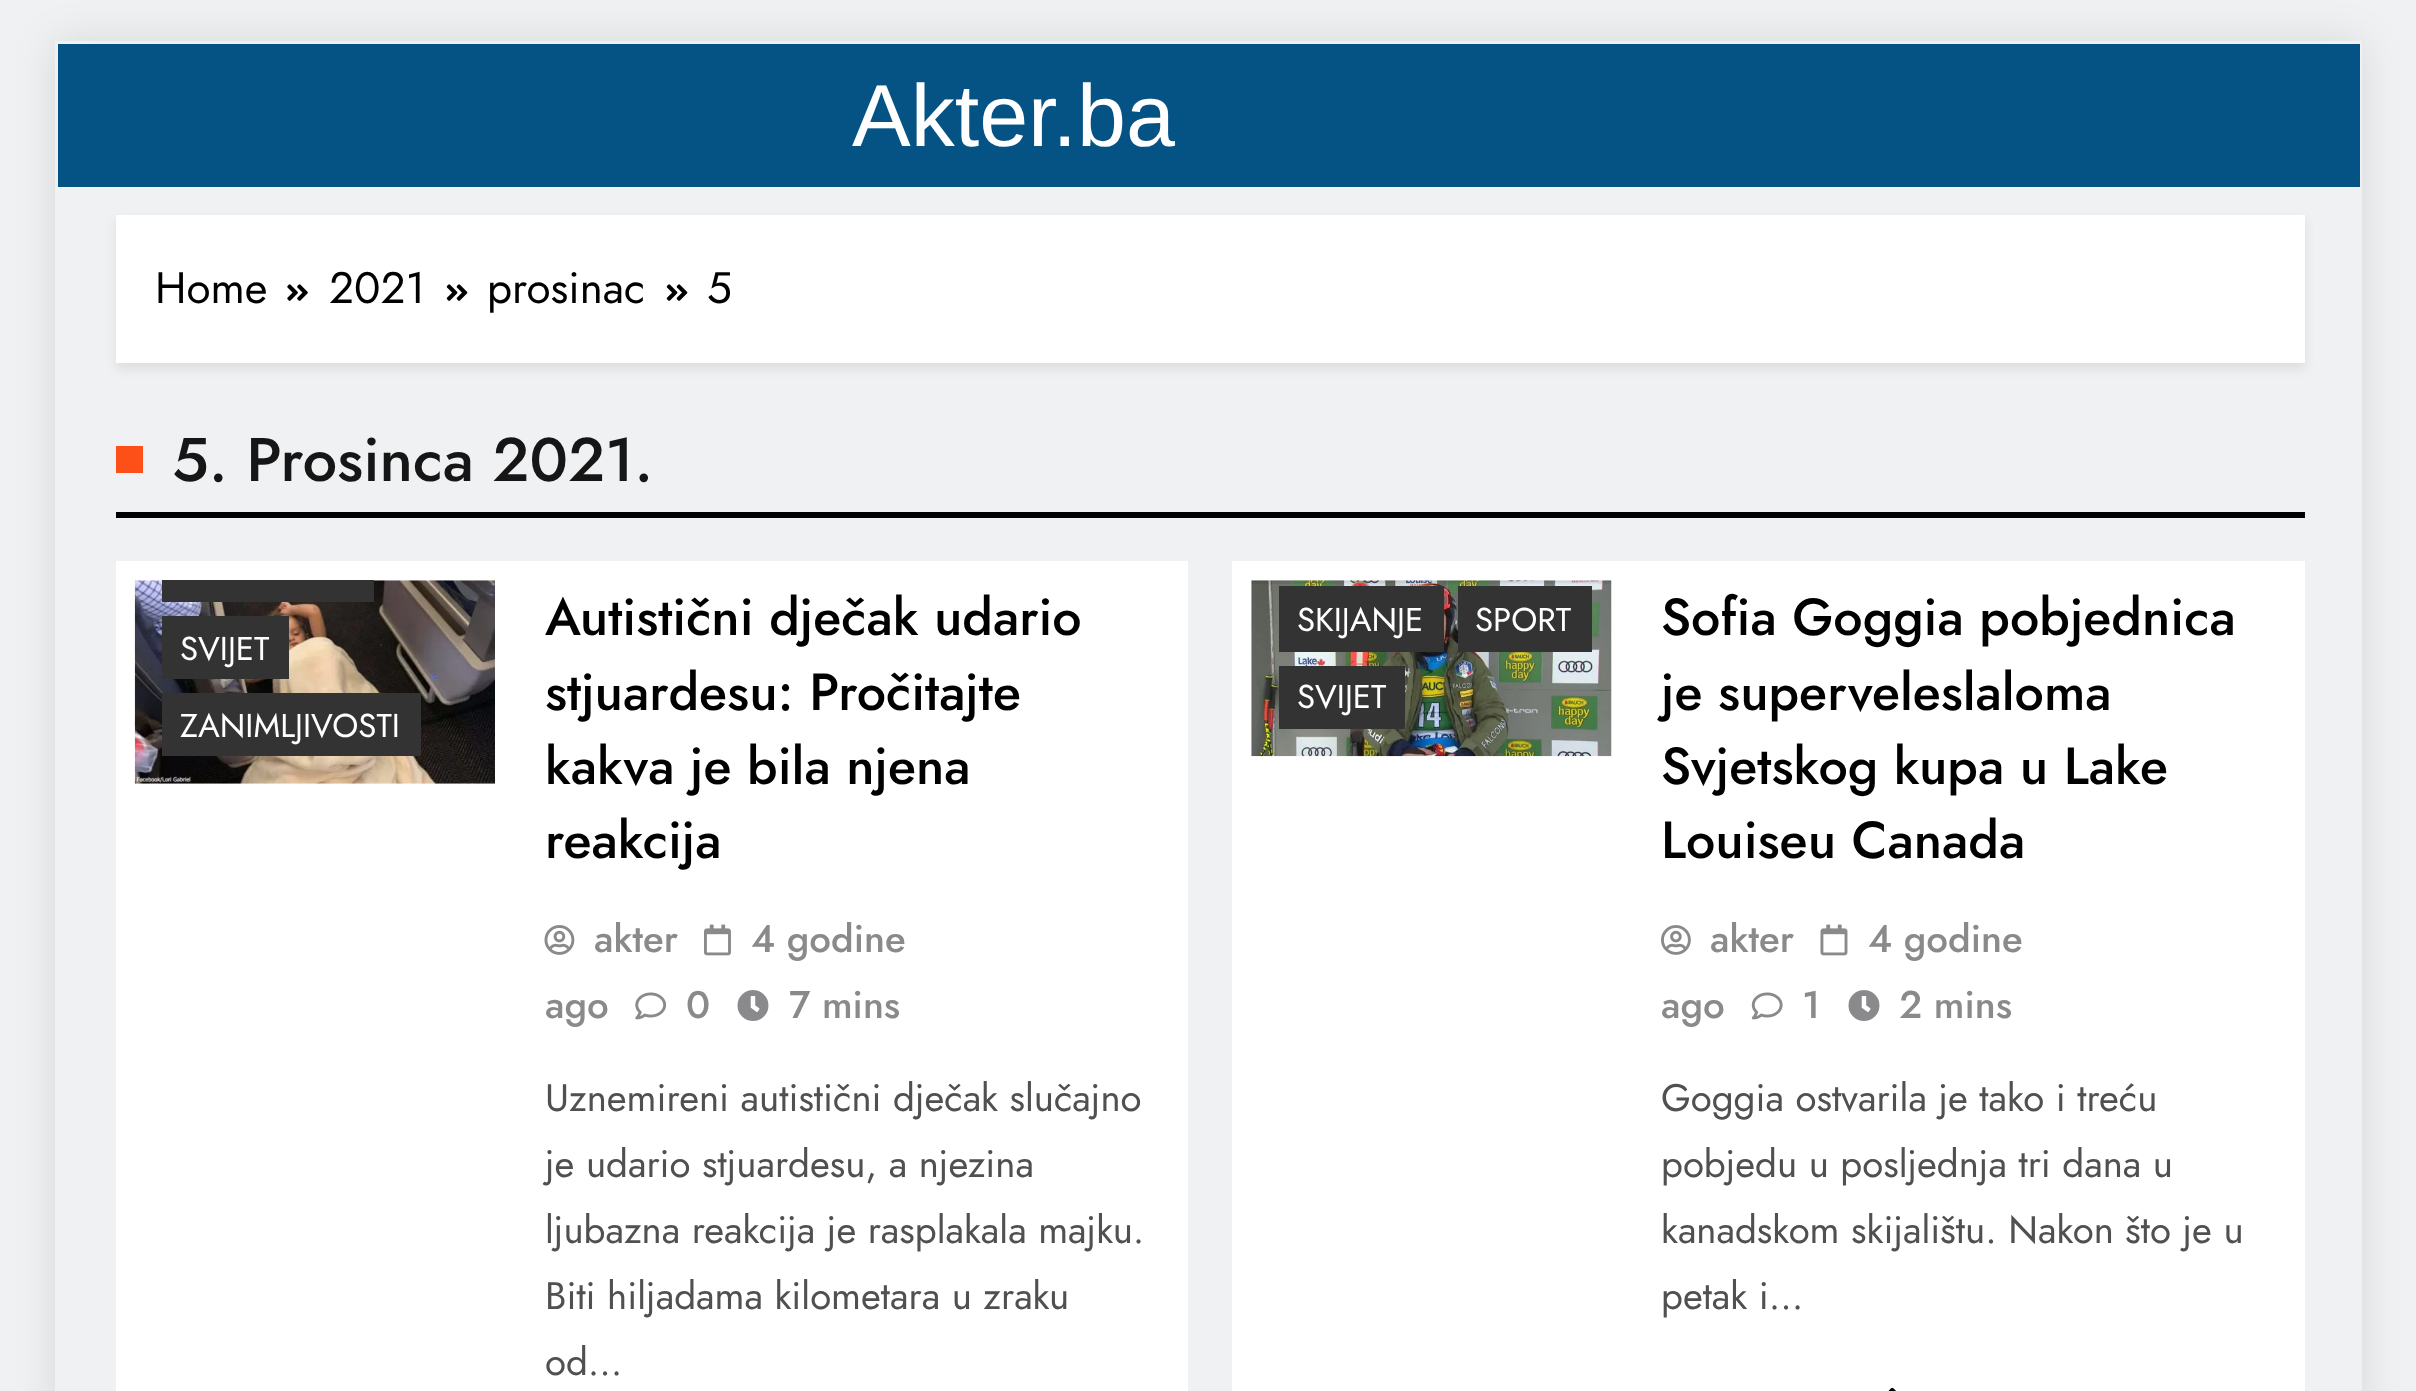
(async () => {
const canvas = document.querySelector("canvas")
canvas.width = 2416
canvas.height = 1391
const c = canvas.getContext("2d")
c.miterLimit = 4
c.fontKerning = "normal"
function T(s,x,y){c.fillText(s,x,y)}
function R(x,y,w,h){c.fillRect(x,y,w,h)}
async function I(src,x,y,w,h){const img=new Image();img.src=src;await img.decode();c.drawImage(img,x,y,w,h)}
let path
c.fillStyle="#f0f1f2"
R(0,0,2416,1391)
c.save()
path = new Path2D("M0 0h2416v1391h-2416zm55 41h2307v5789h-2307z")
c.clip(path,"evenodd")
c.fillStyle="#0000001a"
c.filter="blur(20.5px)"
c.beginPath()
c.rect(55,41,2307,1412)
c.fill()
c.filter="none"
c.restore()
c.fillStyle="#055385"
R(58,44,2302,143)
c.font="88px Liberation Sans"
c.fillStyle="#fff"
T("Akter.ba",852,146)
c.fillStyle="#00000014"
c.filter="blur(5.5px)"
c.beginPath()
c.rect(116,220,2189,149)
c.fill()
c.filter="none"
c.fillStyle="#fff"
R(116,215,2189,148)
c.font="44px Jost"
c.fillStyle="#000"
T("Home",155,303)
await I("1.png",287,284,21,17)
T("2021",329,303)
await I("2.png",446,284,22,17)
T("prosinac",487,303)
await I("2.png",666,284,22,17)
T("5",707,303)
R(116,512,2189,6)
c.fillStyle="#fd4f18"
R(116,446,27,27)
c.font="500 61.5px Jost"
c.fillStyle="#161616"
T("5. Prosinca 2021.",172,481)
c.fillStyle="#fff"
R(116,561,1072,830)
await I("3.png",134,580,361,204)
c.fillStyle="#333"
R(162,580,212,22)
R(162,616,127,63)
c.font="33px Jost"
c.fillStyle="#fff"
T("SVIJET",180,660)
c.fillStyle="#333"
R(162,693,259,63)
c.fillStyle="#fff"
T("ZANIMLJIVOSTI",180,737)
c.font="500 52px Jost"
c.fillStyle="#000"
T("Autistični dječak udario",545,635)
T("stjuardesu: Pročitajte",545,710)
T("kakva je bila njena",545,784)
T("reakcija",545,858)
await I("4.png",544,925,31,30)
c.font="500 38.5px Jost"
c.fillStyle="#8a8a8c"
T("akter",594,952)
await I("5.png",704,924,27,32)
T("4 godine",751,952)
T("ago",545,1018)
await I("6.png",635,992,32,28)
T("0",686,1018)
await I("7.png",737,990,32,31)
T("7 mins",789,1018)
c.font="38.4px Jost"
c.fillStyle="#505050"
T("Uznemireni autistični dječak slučajno",545,1111)
T("je udario stjuardesu, a njezina",545,1177)
T("ljubazna reakcija je rasplakala majku.",545,1243)
T("Biti hiljadama kilometara u zraku",545,1309)
T("od…",545,1375)
c.fillStyle="#fff"
R(1232,561,1073,830)
await I("8.png",1251,580,361,177)
c.fillStyle="#333"
R(1279,586,165,66)
c.font="33px Jost"
c.fillStyle="#fff"
T("SKIJANJE",1297,631)
c.fillStyle="#333"
R(1458,586,134,66)
c.fillStyle="#fff"
T("SPORT",1475,631)
c.fillStyle="#333"
R(1279,666,126,63)
c.fillStyle="#fff"
T("SVIJET",1297,708)
c.font="500 52px Jost"
c.fillStyle="#000"
T("Sofia Goggia pobjednica",1661,635)
T("je superveleslaloma",1661,710)
T("Svjetskog kupa u Lake",1661,784)
T("Louiseu Canada",1661,858)
await I("9.png",1661,925,30,30)
c.font="500 38.5px Jost"
c.fillStyle="#8a8a8c"
T("akter",1710,952)
await I("10.png",1820,924,28,32)
T("4 godine",1868,952)
T("ago",1661,1018)
await I("11.png",1751,992,32,28)
T("1",1802,1018)
await I("7.png",1848,990,32,31)
T("2 mins",1899,1018)
c.font="38.4px Jost"
c.fillStyle="#505050"
T("Goggia ostvarila je tako i treću",1661,1111)
T("pobjedu u posljednja tri dana u",1661,1177)
T("kanadskom skijalištu. Nakon što je u",1661,1243)
T("petak i…",1661,1309)
await I("12.png",1888,1387,8,4)
})()
